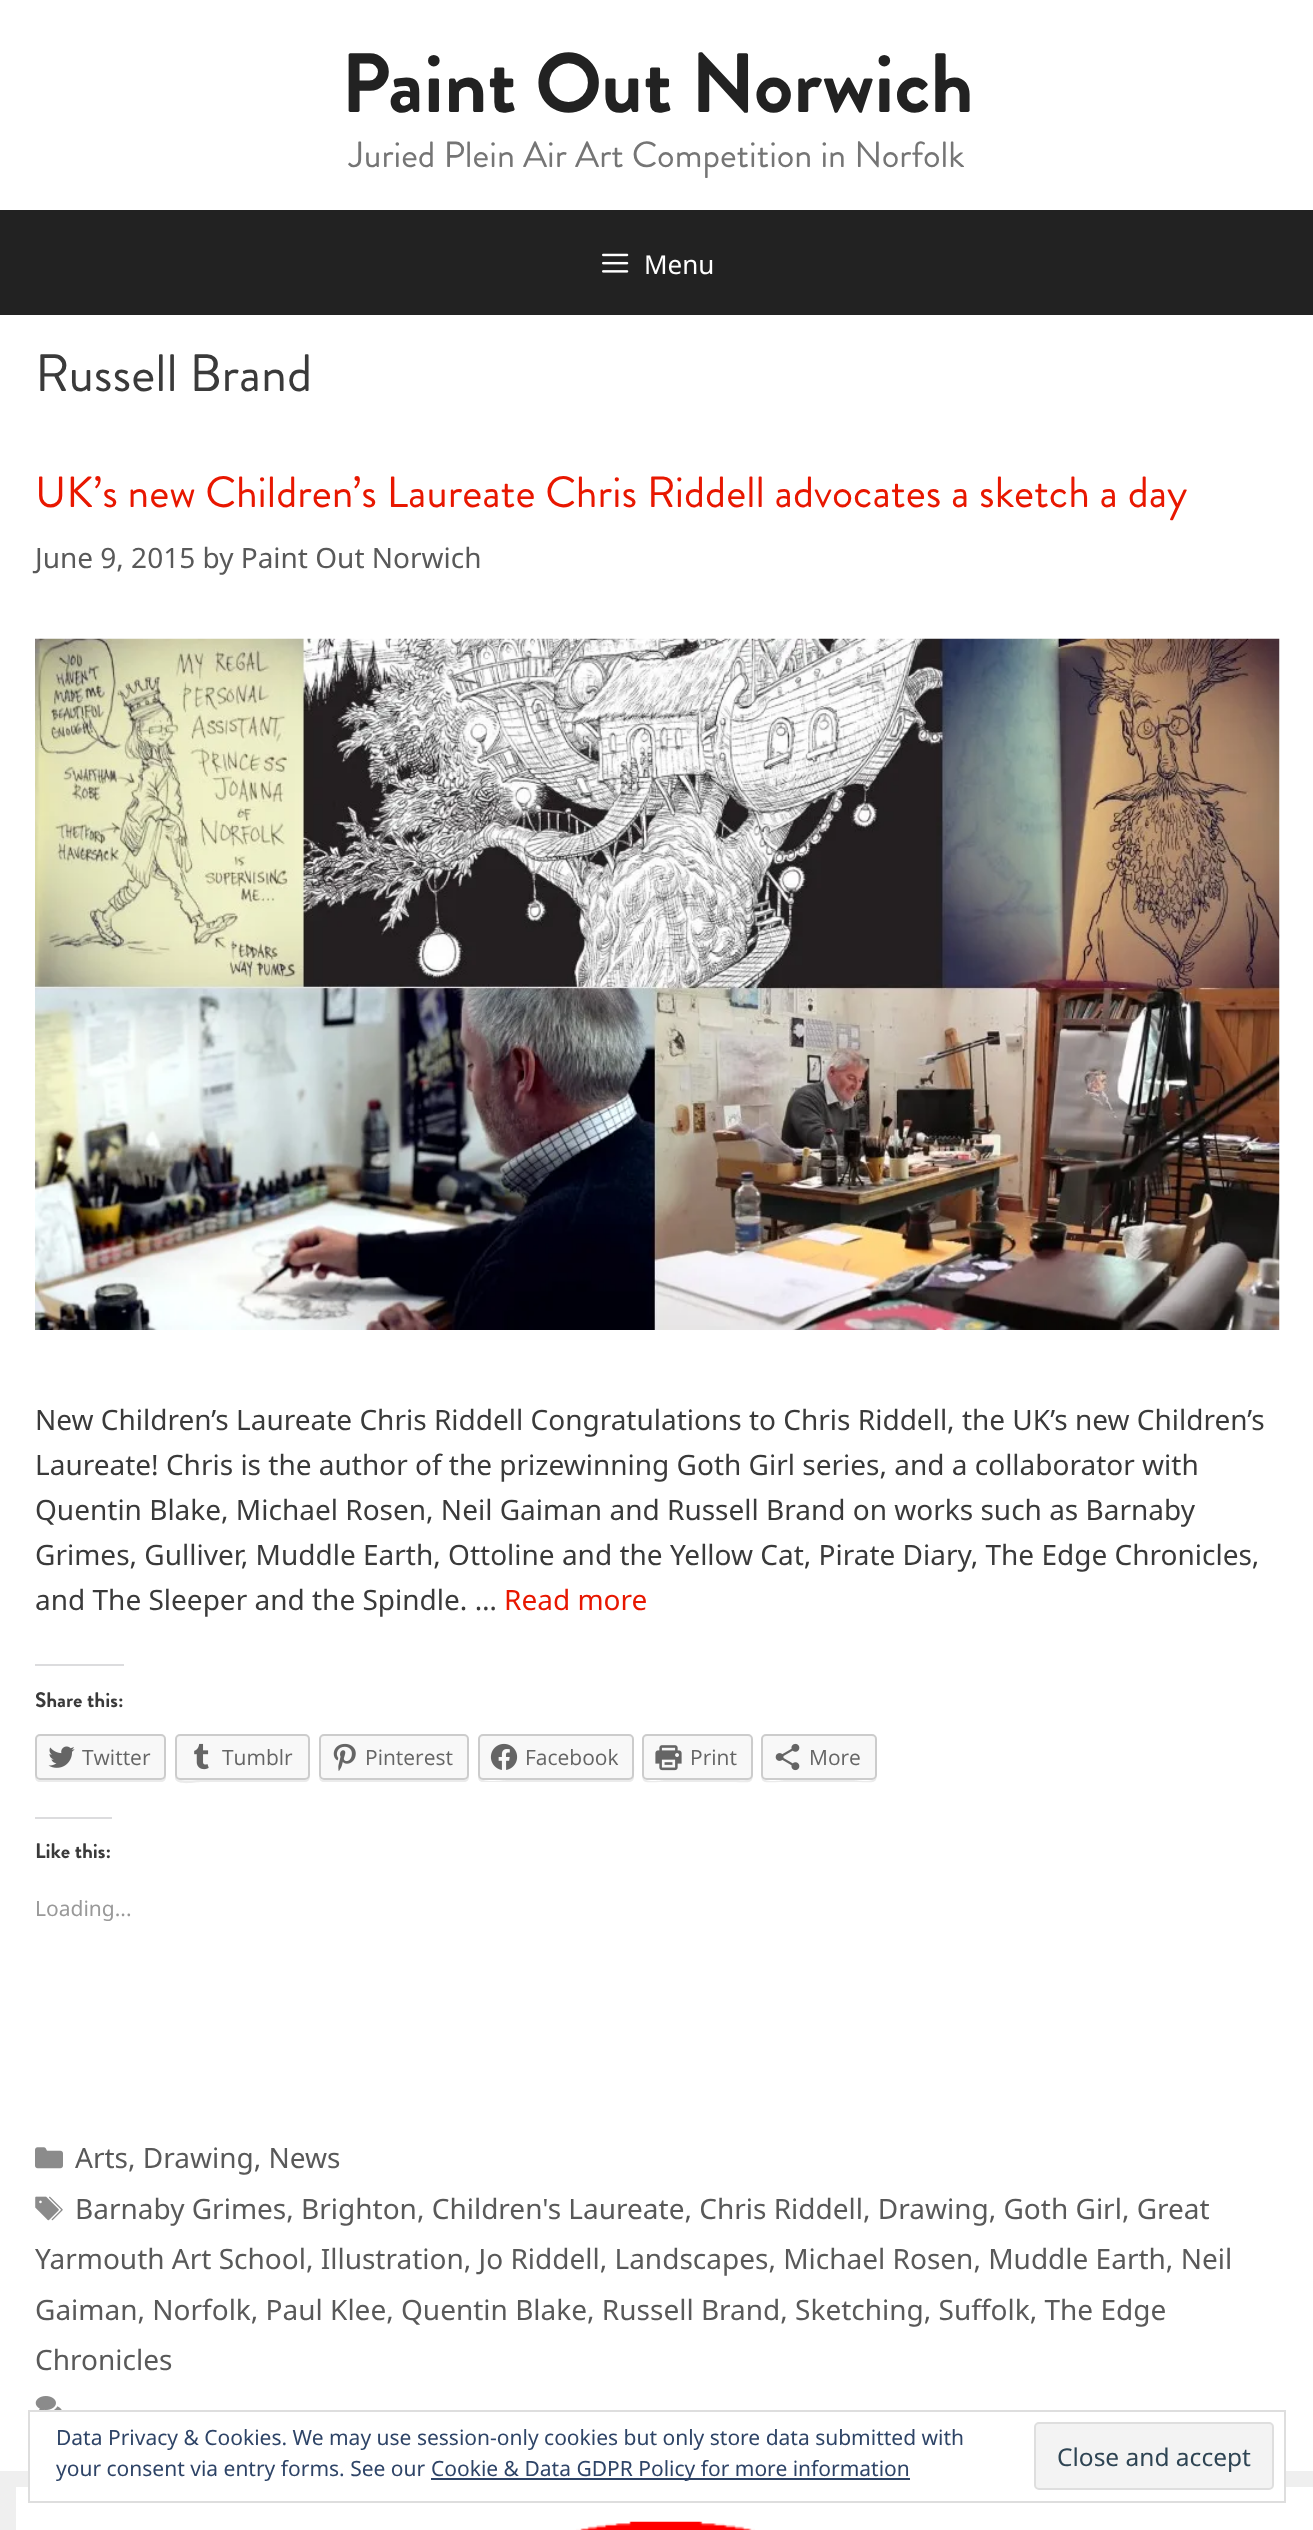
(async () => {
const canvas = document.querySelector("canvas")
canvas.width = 1313
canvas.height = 2530
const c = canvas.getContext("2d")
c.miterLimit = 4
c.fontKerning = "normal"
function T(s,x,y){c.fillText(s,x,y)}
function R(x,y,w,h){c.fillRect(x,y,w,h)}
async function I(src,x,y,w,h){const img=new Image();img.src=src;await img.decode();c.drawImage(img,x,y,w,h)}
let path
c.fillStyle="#efefef"
R(0,0,1313,2530)
c.fillStyle="#fff"
R(0,0,1313,210)
c.font="bold 84px Brandon Grotesque"
c.fillStyle="#222"
T("Paint Out Norwich",341,112)
c.font="36.4px Brandon Grotesque"
c.fillStyle="#757575"
T("Juried Plein Air Art Competition in Norfolk",349,167)
c.fillStyle="#222"
R(0,210,1313,105)
await I("1.png",602,253,27,20)
c.font="26px Noto Sans"
c.fillStyle="#fff"
T("Menu",644,274)
R(0,315,1313,2156)
c.font="52.5px Brandon Grotesque"
c.fillStyle="#3a3a3a"
T("Russell Brand",35,391)
c.font="43.75px Brandon Grotesque"
c.fillStyle="#e81700"
T("UK’s new Children’s Laureate Chris Riddell advocates a sketch a day",35,507)
c.font="28px Noto Sans"
c.fillStyle="#595959"
T("June 9, 2015 by Paint Out Norwich",35,568)
await I("2.png",35,638,1245,692)
c.fillStyle="#3a3a3a"
T("New Children’s Laureate Chris Riddell Congratulations to Chris Riddell, the UK’s new Children’s",35,1430)
T("Laureate! Chris is the author of the prizewinning Goth Girl series, and a collaborator with",35,1475)
T("Quentin Blake, Michael Rosen, Neil Gaiman and Russell Brand on works such as Barnaby",35,1520)
T("Grimes, Gulliver, Muddle Earth, Ottoline and the Yellow Cat, Pirate Diary, The Edge Chronicles,",35,1565)
T("and The Sleeper and the Spindle. …",35,1610)
c.fillStyle="#e81700"
T("Read more",504,1610)
c.fillStyle="#dcdcde"
R(35,1664,89,2)
c.font="bold 21px Brandon Grotesque"
c.fillStyle="#3a3a3a"
T("Share this:",35,1707)
c.fillStyle="#ebebeb"
path = new Path2D("M35 1774v3c0 3 2 5 5 5h121c3 0 5-2 5-5v-1c-1 2-3 4-5 4h-121c-3 0-5-3-5-6z")
c.fill(path)
c.fillStyle="#f8f8f8"
c.beginPath()
c.roundRect(36,1735,129,44,4)
c.fill()
c.strokeStyle="#ccc"
c.lineWidth=2
c.stroke()
await I("3.png",48,1746,27,22)
c.font="21px Open Sans"
c.fillStyle="#656565"
T("Twitter",82,1765)
c.fillStyle="#ebebeb"
path = new Path2D("M175 1774v5c3 7 22 3 26 3h104c6 0 5-7 5-11v-32v30c0 4 1 11-6 11h-103c-10 0-26 3-26-6z")
c.fill(path)
c.fillStyle="#f8f8f8"
c.beginPath()
c.roundRect(176,1735,133,44,4)
c.fill()
c.stroke()
await I("4.png",194,1743,15,27)
c.fillStyle="#656565"
T("Tumblr",222,1765)
c.fillStyle="#ebebeb"
path = new Path2D("M319 1777c0 3 2 5 5 5h140c3 0 5-2 5-5v-3c0 3-2 6-5 6h-140c-2 0-4-1-5-3z")
c.fill(path)
c.fillStyle="#f8f8f8"
c.beginPath()
c.roundRect(320,1735,148,44,4)
c.fill()
c.stroke()
await I("5.png",333,1743,23,28)
c.fillStyle="#656565"
T("Pinterest",365,1765)
c.fillStyle="#ebebeb"
path = new Path2D("M478 1776v1c0 3 2 5 5 5h146c3 0 5-2 5-5v-36l-1-2l1 24c0 4 2 17-6 17h-121c-4 0-26 4-29-4z")
c.fill(path)
c.fillStyle="#f8f8f8"
c.beginPath()
c.roundRect(479,1735,154,44,4)
c.fill()
c.stroke()
await I("6.png",490,1743,28,27)
c.fillStyle="#656565"
T("Facebook",525,1765)
c.fillStyle="#ebebeb"
path = new Path2D("M642 1739v26c0 21-1 17 22 17h67c23 0 22 4 22-17v-18c0-2 1-6-1-8v24c0 20 1 17-21 17h-67c-1 0-20 4-22-4z")
c.fill(path)
c.fillStyle="#f8f8f8"
c.beginPath()
c.roundRect(643,1735,109,44,4)
c.fill()
c.stroke()
await I("7.png",655,1745,27,26)
c.fillStyle="#656565"
T("Print",690,1765)
c.fillStyle="#ebebeb"
path = new Path2D("M761 1739v26c0 21-1 17 23 17h70c24 0 23 4 23-17v-26v37c-2 8-22 4-23 4h-70c-1 0-21 4-23-4z")
c.fill(path)
c.fillStyle="#f8f8f8"
c.beginPath()
c.roundRect(762,1735,114,44,4)
c.fill()
c.stroke()
await I("8.png",775,1743,25,28)
c.fillStyle="#656565"
T("More",809,1765)
c.fillStyle="#dcdcde"
R(35,1817,77,2)
c.font="bold 21px Brandon Grotesque"
c.fillStyle="#3a3a3a"
T("Like this:",35,1858)
c.font="21px Noto Sans"
c.fillStyle="#999"
T("Loading...",35,1916)
await I("9.png",35,2147,28,22)
c.font="28px Noto Sans"
c.fillStyle="#595959"
T("Arts, Drawing, News",75,2168)
await I("10.png",35,2196,28,25)
T("Barnaby Grimes, Brighton, Children's Laureate, Chris Riddell, Drawing, Goth Girl, Great",75,2219)
T("Yarmouth Art School, Illustration, Jo Riddell, Landscapes, Michael Rosen, Muddle Earth, Neil",35,2269)
T("Gaiman, Norfolk, Paul Klee, Quentin Blake, Russell Brand, Sketching, Suffolk, The Edge",35,2320)
T("Chronicles",35,2370)
await I("11.png",35,2396,27,14)
c.fillStyle="#fff"
R(16,2487,1297,43)
await I("12.png",576,2521,179,9)
R(30,2471,1254,16)
c.strokeStyle="#dedede"
c.strokeRect(29,2411,1256,91)
c.font="21px Noto Sans"
c.fillStyle="#2e4467"
T("Data Privacy & Cookies. We may use session-only cookies but only store data submitted with",56,2445)
T("your consent via entry forms. See our",56,2476)
R(431,2478,479,2)
T("Cookie & Data GDPR Policy for more information",431,2476)
c.fillStyle="#f3f3f3"
c.beginPath()
c.roundRect(1035,2423,238,66,4)
c.fill()
c.stroke()
c.font="24.5px Noto Sans"
c.fillStyle="#2e4453"
T("Close and accept",1057,2466)
})()
